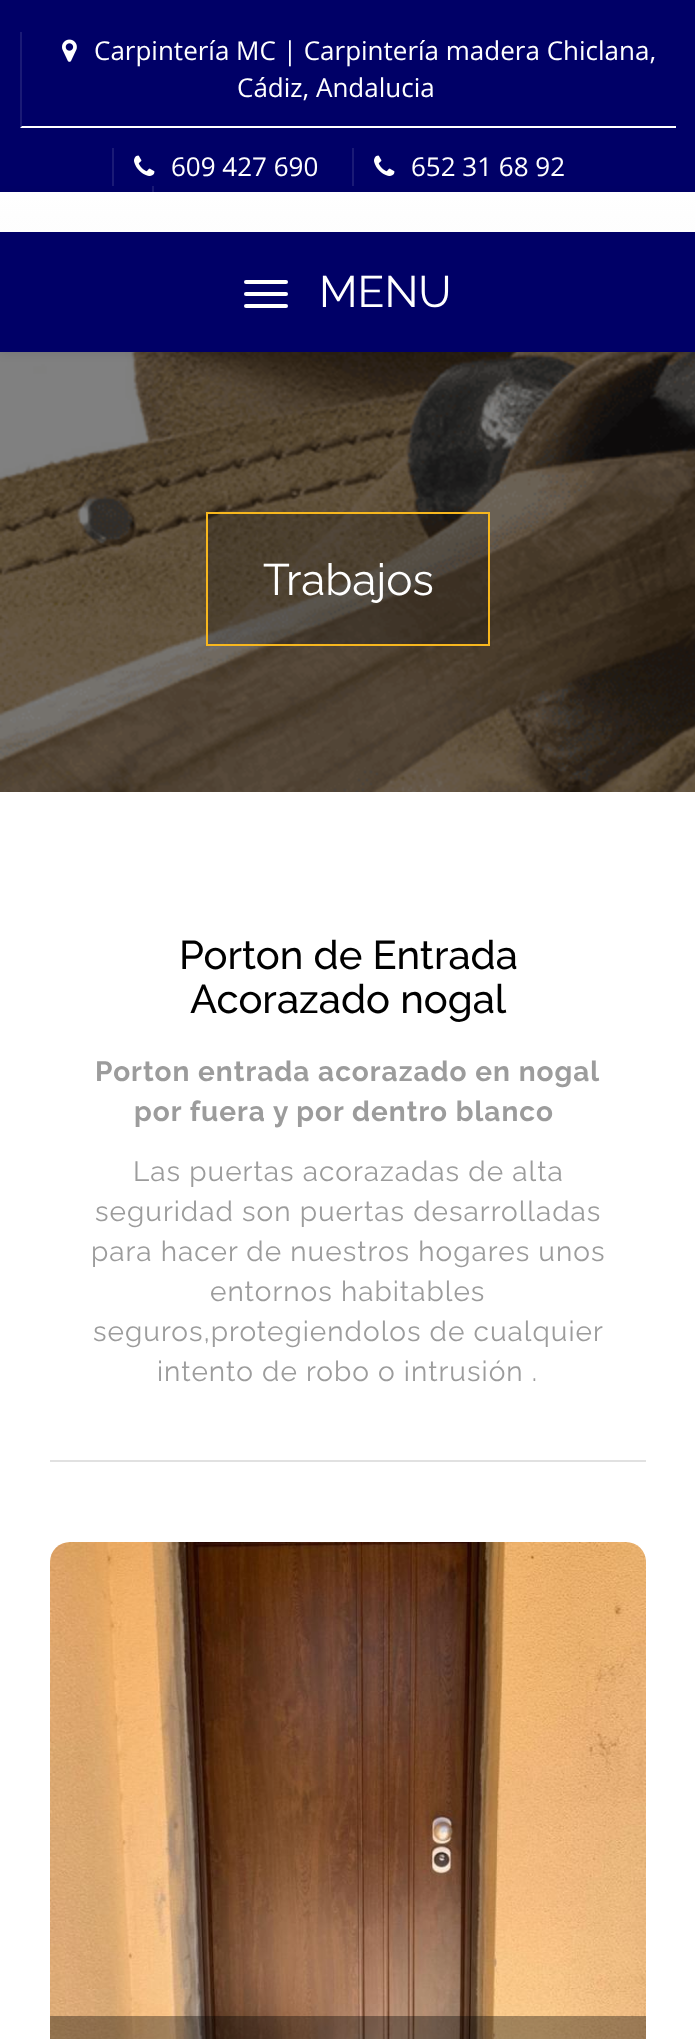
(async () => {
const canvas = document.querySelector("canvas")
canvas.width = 695
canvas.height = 2039
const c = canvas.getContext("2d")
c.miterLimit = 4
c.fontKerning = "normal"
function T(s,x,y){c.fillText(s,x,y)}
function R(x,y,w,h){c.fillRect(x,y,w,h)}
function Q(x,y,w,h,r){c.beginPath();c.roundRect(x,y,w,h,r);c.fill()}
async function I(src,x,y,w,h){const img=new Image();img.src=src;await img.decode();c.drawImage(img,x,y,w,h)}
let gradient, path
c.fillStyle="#fff"
R(0,0,695,2039)
c.fillStyle="#000067"
R(0,0,695,192)
c.fillStyle="#1a1a76"
R(152,186,2,6)
c.fillStyle="#fff"
path = new Path2D("M676 128h-656l2-2h654z")
c.fill(path)
c.fillStyle="#ffffff1a"
path = new Path2D("M20 128v-96h2v94z")
c.fill(path)
await I("1.png",62,39,15,23)
c.font="26px Open Sans"
c.fillStyle="#fff"
T("Carpintería MC | Carpintería madera Chiclana,",94,60)
T("Cádiz, Andalucia",237,97)
c.fillStyle="#1a1a76"
R(112,148,2,38)
await I("2.png",134,155,21,21)
c.fillStyle="#fff"
T("609 427 690",171,176)
c.fillStyle="#1a1a76"
R(352,148,2,38)
await I("2.png",374,155,21,21)
c.fillStyle="#fff"
T("652 31 68 92",411,176)
await I("3.png",0,352,695,440)
c.fillStyle="#00000012"
c.filter="blur(5px)"
c.beginPath()
c.rect(0,194,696,160)
c.fill()
c.filter="none"
gradient = c.createLinearGradient(348,192,348,352)
gradient.addColorStop(0,"#fff")
gradient.addColorStop(1,"#f8f8f8")
c.fillStyle = gradient
R(0,192,695,40)
c.fillStyle="#000067"
R(0,232,695,120)
c.fillStyle="#fff"
Q(244,280,44,4,2)
Q(244,292,44,4,2)
Q(244,304,44,4,2)
c.font="44px Raleway"
T("MENU",319,307)
c.fillStyle="#00000033"
c.beginPath()
c.rect(207,513,282,132)
c.fill()
c.strokeStyle="#f7b71e"
c.lineWidth=2
c.stroke()
c.fillStyle="#fff"
T("Trabajos",263,595)
c.fillStyle="#e1e1e1"
R(50,1460,596,2)
c.font="500 40px Raleway"
c.fillStyle="#000"
T("Porton de Entrada",179,969)
T("Acorazado nogal",190,1013)
c.letterSpacing="1px"
c.font="bold 28px Raleway"
c.fillStyle="#9c9c9c"
T("Porton entrada acorazado en nogal",95,1081)
T("por fuera y por dentro blanco",134,1121)
c.font="28px Raleway"
T("Las puertas acorazadas de alta",133,1181)
T("seguridad son puertas desarrolladas",95,1221)
T("para hacer de nuestros hogares unos",91,1261)
T("entornos habitables",210,1301)
T("seguros,protegiendolos de cualquier",93,1341)
T("intento de robo o intrusión .",157,1381)
await I("4.png",50,1542,596,497)
c.fillStyle="#00000059"
R(50,2016,596,23)
})()
